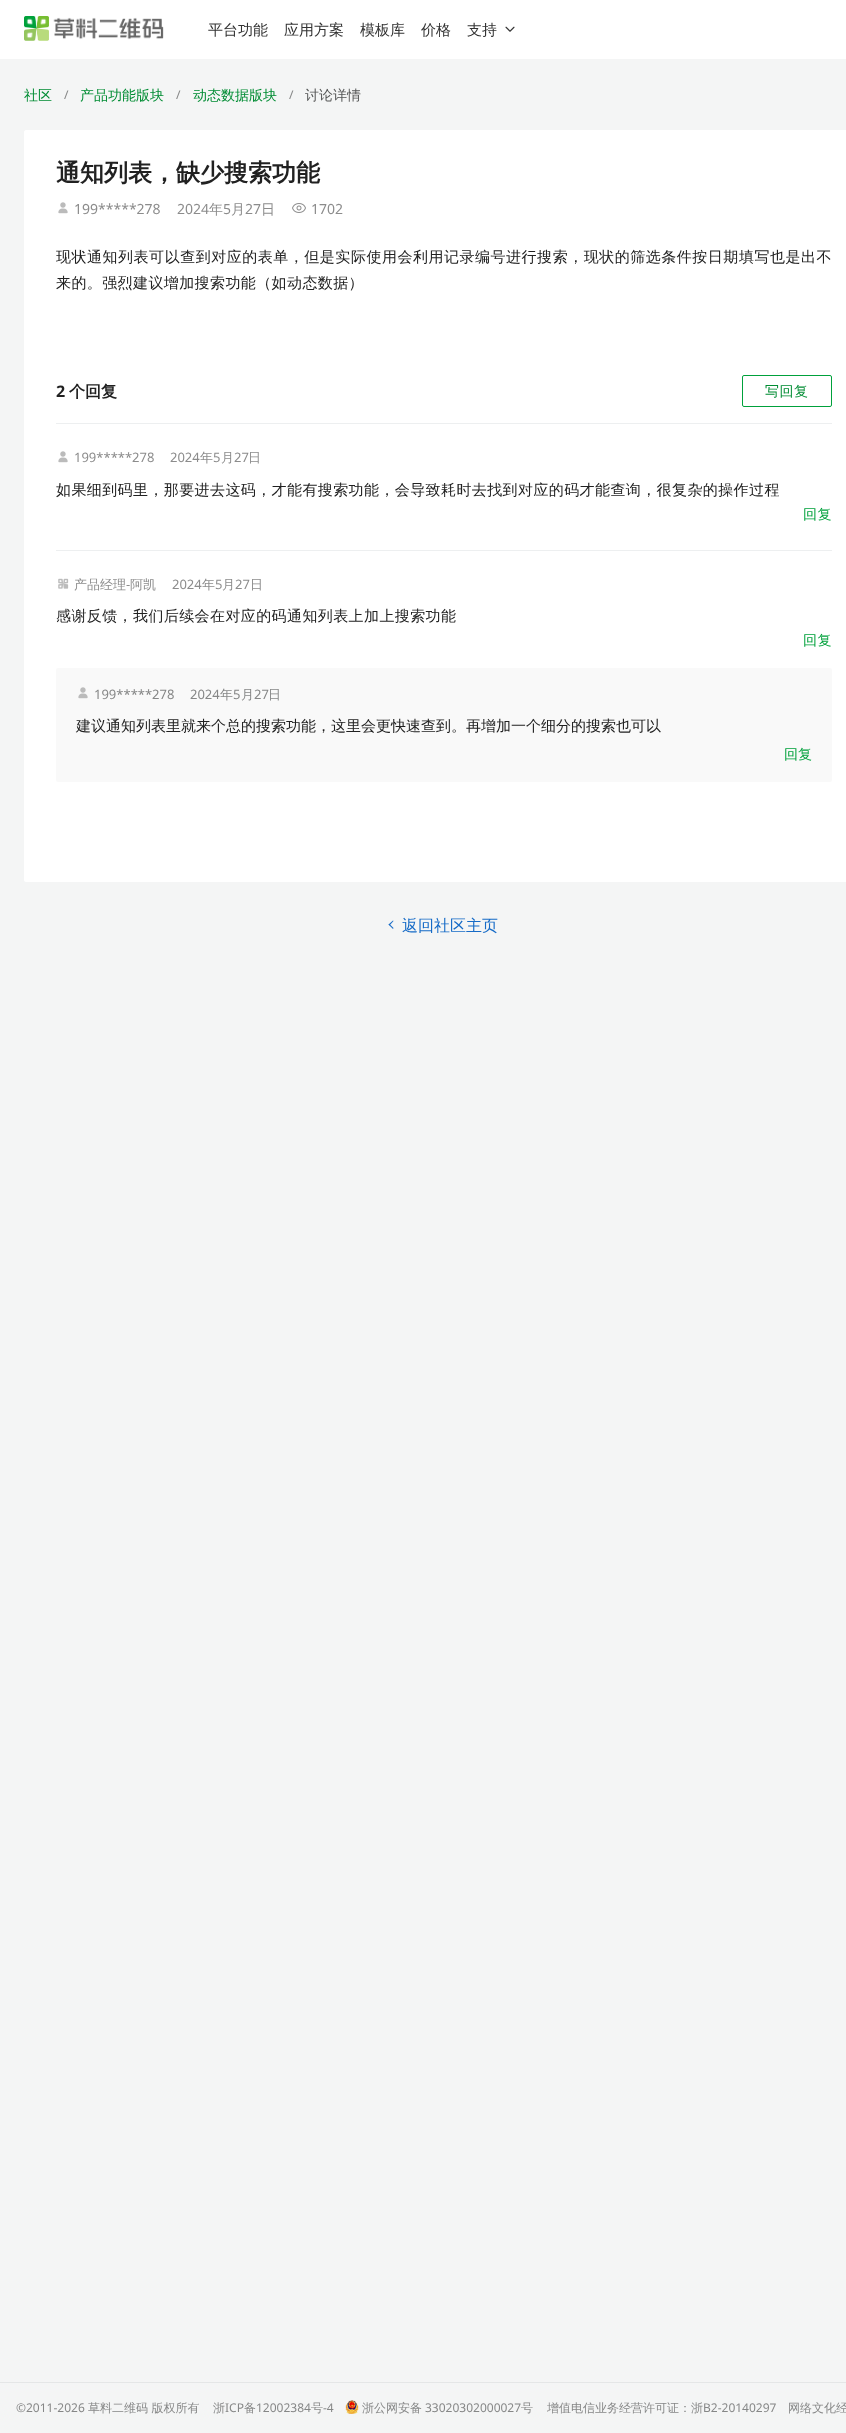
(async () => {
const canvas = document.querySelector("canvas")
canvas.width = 846
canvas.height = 2433
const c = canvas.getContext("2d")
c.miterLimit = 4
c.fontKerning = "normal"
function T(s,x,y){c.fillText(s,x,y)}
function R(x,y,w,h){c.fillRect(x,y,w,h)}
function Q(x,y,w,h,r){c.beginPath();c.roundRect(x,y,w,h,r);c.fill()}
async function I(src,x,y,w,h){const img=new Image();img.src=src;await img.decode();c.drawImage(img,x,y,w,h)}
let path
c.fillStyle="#f4f5f5"
R(0,0,846,2433)
c.fillStyle="#fff"
R(0,0,846,59)
await I("1.png",24,16,140,25)
c.font="500 15px WenQuanYi Zen Hei"
c.fillStyle="#333"
T("平台功能",208,35)
T("应用方案",284,35)
T("模板库",360,35)
T("价格",421,35)
T("支持",467,35)
await I("2.png",505,26,10,6)
c.font="500 14px WenQuanYi Zen Hei"
c.fillStyle="#008c33"
T("社区",24,100)
c.font="12px Noto Sans"
c.fillStyle="#868787"
T("/",64,99)
c.font="500 14px WenQuanYi Zen Hei"
c.fillStyle="#008c33"
T("产品功能版块",80,100)
c.font="12px Noto Sans"
c.fillStyle="#868787"
T("/",176,99)
c.font="500 14px WenQuanYi Zen Hei"
c.fillStyle="#008c33"
T("动态数据版块",193,100)
c.font="12px Noto Sans"
c.fillStyle="#868787"
T("/",289,99)
c.font="500 14px WenQuanYi Zen Hei"
c.fillStyle="#555656"
T("讨论详情",305,100)
c.fillStyle="#fff"
path = new Path2D("M26 130h820c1 0 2 1 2 2v211h-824v-211c0-1 1-2 2-2z")
c.fill(path)
c.font="bold 24px WenQuanYi Zen Hei"
c.fillStyle="#212121"
T("通知列表，缺少搜索功能",56,181)
await I("3.png",58,202,10,12)
c.font="14px Noto Sans"
c.fillStyle="#8c8c8c"
T("199*****278",74,214)
T("2024",177,214)
c.font="500 14px WenQuanYi Zen Hei"
T("年",209,214)
c.font="14px Noto Sans"
T("5",223,214)
c.font="500 14px WenQuanYi Zen Hei"
T("月",231,214)
c.font="14px Noto Sans"
T("27",245,214)
c.font="500 14px WenQuanYi Zen Hei"
T("日",261,214)
await I("4.png",292,203,14,10)
c.font="14px Noto Sans"
T("1702",311,214)
c.letterSpacing="0.52px"
c.font="500 15px WenQuanYi Zen Hei"
c.fillStyle="#212121"
T("现状通知列表可以查到对应的表单，但是实际使用会利用记录编号进行搜索，现状的筛选条件按日期填写也是出不",56,262)
c.letterSpacing="0.4px"
T("来的。强烈建议增加搜索功能（如动态数据）",56,288)
c.fillStyle="#fff"
path = new Path2D("M24 343h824v537c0 1-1 2-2 2h-820c-1 0-2-1-2-2z")
c.fill(path)
c.letterSpacing="0px"
c.font="bold 16px Noto Sans"
c.fillStyle="#212121"
T("2",56,397)
c.font="bold 16px WenQuanYi Zen Hei"
T("个回复",69,397)
c.beginPath()
c.roundRect(742.5,375.5,89,31,1.5)
c.strokeStyle="#00a13b"
c.stroke()
c.letterSpacing="0.5px"
c.font="500 14px WenQuanYi Zen Hei"
c.fillStyle="#008c33"
T("写回复",765,396)
c.fillStyle="#edeff0"
R(56,423,776,1)
R(56,550,776,1)
await I("3.png",58,451,10,12)
c.letterSpacing="0px"
c.font="13px Noto Sans"
c.fillStyle="#8c8c8c"
T("199*****278",74,462)
T("2024",170,462)
c.font="500 13px WenQuanYi Zen Hei"
T("年",200,462)
c.font="13px Noto Sans"
T("5",213,462)
c.font="500 13px WenQuanYi Zen Hei"
T("月",221,462)
c.font="13px Noto Sans"
T("27",234,462)
c.font="500 13px WenQuanYi Zen Hei"
T("日",248,462)
c.letterSpacing="0.4px"
c.font="500 15px WenQuanYi Zen Hei"
c.fillStyle="#212121"
T("如果细到码里，那要进去这码，才能有搜索功能，会导致耗时去找到对应的码才能查询，很复杂的操作过程",56,495)
c.font="500 14px WenQuanYi Zen Hei"
c.fillStyle="#00a13b"
T("回复",803,519)
await I("5.png",58,578,11,11)
c.letterSpacing="0px"
c.font="500 13px WenQuanYi Zen Hei"
c.fillStyle="#8c8c8c"
T("产品经理 阿凯",74,589)
c.font="13px Noto Sans"
T("-",126,589)
T("2024",172,589)
c.font="500 13px WenQuanYi Zen Hei"
T("年",202,589)
c.font="13px Noto Sans"
T("5",215,589)
c.font="500 13px WenQuanYi Zen Hei"
T("月",222,589)
c.font="13px Noto Sans"
T("27",235,589)
c.font="500 13px WenQuanYi Zen Hei"
T("日",250,589)
c.letterSpacing="0.4px"
c.font="500 15px WenQuanYi Zen Hei"
c.fillStyle="#212121"
T("感谢反馈，我们后续会在对应的码通知列表上加上搜索功能",56,621)
c.font="500 14px WenQuanYi Zen Hei"
c.fillStyle="#00a13b"
T("回复",803,645)
c.fillStyle="#f9f9f9"
Q(56,668,776,114,2)
await I("6.png",78,687,10,12)
c.letterSpacing="0px"
c.font="13px Noto Sans"
c.fillStyle="#868787"
T("199*****278",94,699)
T("2024",190,699)
c.font="500 13px WenQuanYi Zen Hei"
T("年",220,699)
c.font="13px Noto Sans"
T("5",233,699)
c.font="500 13px WenQuanYi Zen Hei"
T("月",241,699)
c.font="13px Noto Sans"
T("27",254,699)
c.font="500 13px WenQuanYi Zen Hei"
T("日",268,699)
c.font="500 15px WenQuanYi Zen Hei"
c.fillStyle="#212121"
T("建议通知列表里就来个总的搜索功能，这里会更快速查到。再增加一个细分的搜索也可以",76,731)
c.font="500 14px WenQuanYi Zen Hei"
c.fillStyle="#00a13b"
T("回复",784,759)
c.fillStyle="#166bc7"
path = new Path2D("M389.5 924l4 4l-.5 1l-4.5-4.5z")
c.fill(path)
path = new Path2D("M393 920.5l.5 .5l-4 4.5l-1-1z")
c.fill(path)
c.font="500 16px WenQuanYi Zen Hei"
T("返回社区主页",402,931)
c.fillStyle="#e4e6e7"
R(0,2382,846,1)
c.font="12px Noto Sans"
c.fillStyle="#868787"
T("©2011-2026",16,2412)
c.font="500 12px WenQuanYi Zen Hei"
T("草料二维码 版权所有",88,2412)
T("浙",213,2412)
c.font="12px Noto Sans"
T("ICP",225,2412)
c.font="500 12px WenQuanYi Zen Hei"
T("备",244,2412)
c.font="12px Noto Sans"
T("12002384",256,2412)
c.font="500 12px WenQuanYi Zen Hei"
T("号",311,2412)
c.font="12px Noto Sans"
T("-4",323,2412)
await I("7.png",345,2400,14,14)
c.font="500 12px WenQuanYi Zen Hei"
T("浙公网安备",362,2412)
c.font="12px Noto Sans"
T("33020302000027",425,2412)
c.font="500 12px WenQuanYi Zen Hei"
T("号",521,2412)
T("增值电信业务经营许可证：浙",547,2412)
c.font="12px Noto Sans"
T("B2-20140297",703,2412)
c.font="500 12px WenQuanYi Zen Hei"
T("网络文化经",788,2412)
})()
